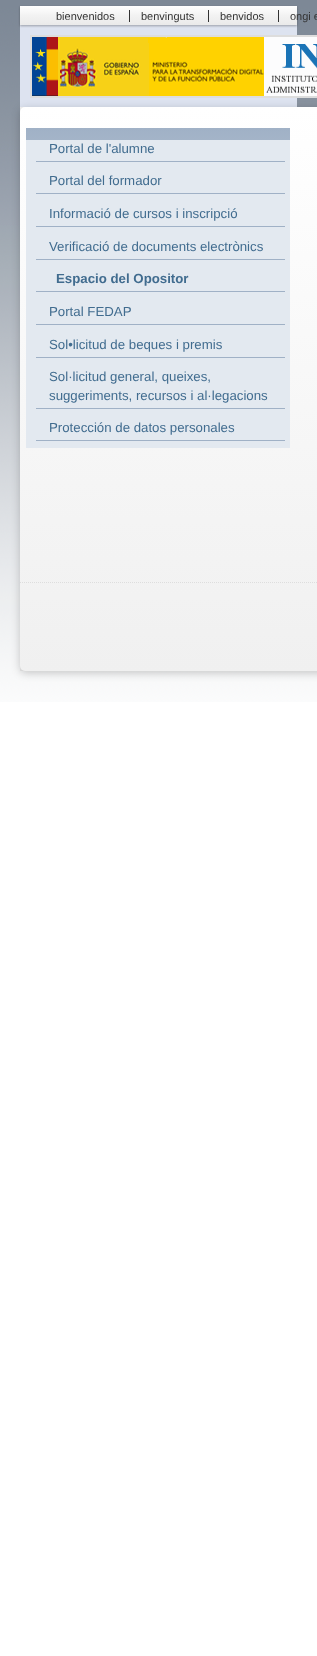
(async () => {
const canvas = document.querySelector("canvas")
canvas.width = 317
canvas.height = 1656
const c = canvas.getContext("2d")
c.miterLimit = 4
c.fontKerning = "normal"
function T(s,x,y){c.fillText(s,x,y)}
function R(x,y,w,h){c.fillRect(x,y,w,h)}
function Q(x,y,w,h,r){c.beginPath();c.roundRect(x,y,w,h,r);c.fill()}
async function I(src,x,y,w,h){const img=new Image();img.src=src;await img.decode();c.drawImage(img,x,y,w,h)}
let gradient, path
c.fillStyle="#fff"
R(0,0,317,1656)
await I("1.png",0,0,317,702)
c.fillStyle="#dde3f0"
R(20,25,277,82)
c.fillStyle="#0000004d"
c.filter="blur(1px)"
c.beginPath()
c.rect(20,7,277,19)
c.fill()
c.filter="none"
gradient = c.createLinearGradient(20,6,20,25)
gradient.addColorStop(0,"#fff")
gradient.addColorStop(.51,"#f2f2f2")
gradient.addColorStop(1,"#eaeaea")
c.fillStyle = gradient
R(20,6,277,19)
c.font="11px Liberation Sans"
c.fillStyle="#333"
T("bienvenidos",56,20)
T("benvinguts",141,20)
R(129,10,1,12)
T("benvidos",220,20)
R(208,10,1,12)
T("ongi e",290,20)
R(278,10,1,12)
gradient = c.createLinearGradient(20,107,20,671)
gradient.addColorStop(0,"#f4f4f4")
gradient.addColorStop(1,"#ebebeb")
c.fillStyle = gradient
R(20,107,5,564)
c.fillStyle="#00000033"
c.filter="blur(4px)"
c.beginPath()
c.roundRect(20,109,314,564,5)
c.fill()
c.filter="none"
c.strokeStyle="#ddd"
c.lineWidth=2
c.strokeRect(31,36,235,61)
await I("2.png",32,37,232,59)
c.strokeRect(268,36,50,61)
await I("3.png",264,37,53,59)
gradient = c.createLinearGradient(20,107,20,671)
gradient.addColorStop(0,"#fff")
gradient.addColorStop(1,"#f0f0f0")
c.fillStyle = gradient
Q(20,107,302,564,5)
gradient = c.createLinearGradient(26,128,26,448)
gradient.addColorStop(0,"#a0b1c6")
gradient.addColorStop(1,"#fff")
c.fillStyle = gradient
R(26,128,264,12)
c.fillStyle="#e3e9f0"
R(26,140,264,308)
c.fillStyle="#a0b1c6"
R(36,161,249,1)
c.font="13.25px Liberation Sans"
c.fillStyle="#416c8f"
T("Portal de l'alumne",49,153)
c.fillStyle="#a0b1c6"
R(36,193,249,1)
c.fillStyle="#416c8f"
T("Portal del formador",49,185)
c.fillStyle="#a0b1c6"
R(36,226,249,1)
c.fillStyle="#416c8f"
T("Informació de cursos i inscripció",49,218)
c.fillStyle="#a0b1c6"
R(36,259,249,1)
c.fillStyle="#416c8f"
T("Verificació de documents electrònics",49,251)
c.fillStyle="#a0b1c6"
R(36,291,249,1)
c.font="bold 13.25px Liberation Sans"
c.fillStyle="#416c8f"
T("Espacio del Opositor",56,283)
c.fillStyle="#a0b1c6"
R(36,324,249,1)
c.font="13.25px Liberation Sans"
c.fillStyle="#416c8f"
T("Portal FEDAP",49,316)
c.fillStyle="#a0b1c6"
R(36,357,249,1)
c.fillStyle="#416c8f"
T("Sol•licitud de beques i premis",49,349)
c.fillStyle="#a0b1c6"
R(36,408,249,1)
c.fillStyle="#416c8f"
T("Sol·licitud general, queixes,",49,381)
T("suggeriments, recursos i al·legacions",49,400)
c.fillStyle="#a0b1c6"
R(36,440,249,1)
c.fillStyle="#416c8f"
T("Protección de datos personales",49,432)
path = new Path2D("M20 582.5h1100")
c.lineWidth=1
c.setLineDash([1,1])
c.stroke(path)
})()
